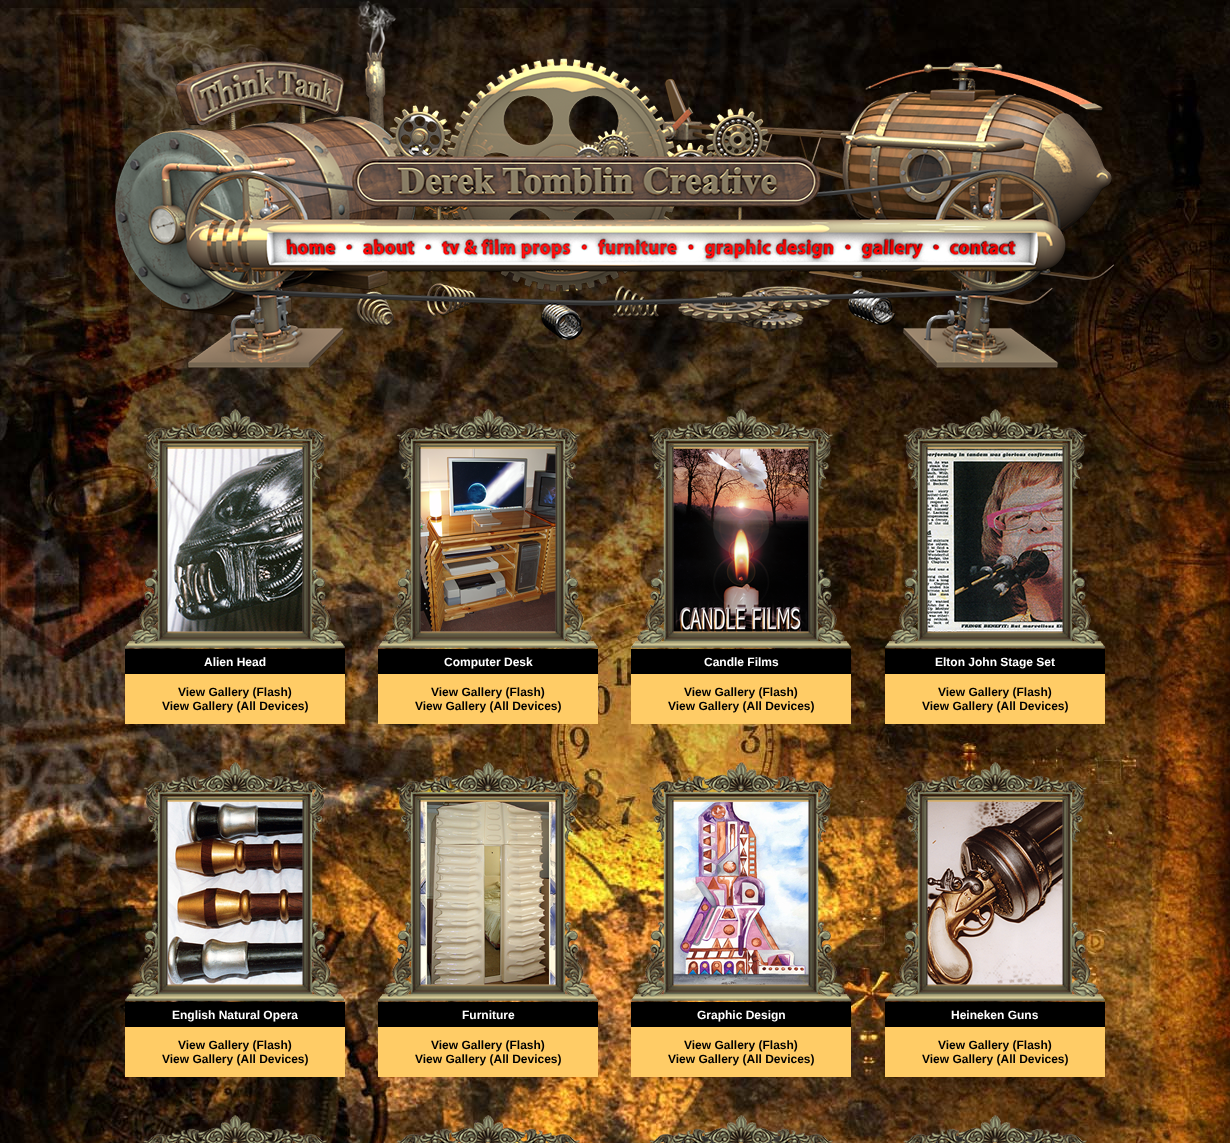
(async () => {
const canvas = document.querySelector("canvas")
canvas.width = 1230
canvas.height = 1143
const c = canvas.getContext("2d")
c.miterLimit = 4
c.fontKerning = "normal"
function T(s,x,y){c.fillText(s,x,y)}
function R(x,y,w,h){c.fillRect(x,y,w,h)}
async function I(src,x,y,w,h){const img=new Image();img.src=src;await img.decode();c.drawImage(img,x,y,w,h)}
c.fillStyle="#fff"
R(0,0,1230,1143)
await I("1.png",0,0,1230,1143)
await I("2.png",115,0,313,229)
await I("3.png",428,58,263,171)
await I("4.png",691,63,245,166)
await I("5.png",936,62,176,167)
await I("6.png",117,229,142,41)
await I("7.png",259,229,90,41)
await I("8.png",349,229,79,41)
await I("9.png",428,229,156,41)
await I("10.png",584,229,107,41)
await I("11.png",691,229,157,41)
await I("12.png",848,229,88,41)
await I("13.png",936,229,96,41)
await I("14.png",1032,229,82,41)
await I("15.png",133,270,295,98)
await I("16.png",428,270,263,71)
await I("17.png",691,270,245,96)
await I("18.png",936,270,174,98)
await I("19.png",125,409,220,239)
await I("20.png",378,409,220,239)
await I("21.png",631,409,220,239)
await I("22.png",885,409,220,239)
c.fillStyle="#000"
R(125,649,220,25)
c.font="bold 12px Liberation Sans"
c.fillStyle="#fff"
T("Alien Head",204,666)
c.fillStyle="#000"
R(378,649,220,25)
c.fillStyle="#fff"
T("Computer Desk",444,666)
c.fillStyle="#000"
R(631,649,220,25)
c.fillStyle="#fff"
T("Candle Films",704,666)
c.fillStyle="#000"
R(885,649,220,25)
c.fillStyle="#fff"
T("Elton John Stage Set",935,666)
c.fillStyle="#fc6"
R(125,674,220,50)
c.fillStyle="#000"
T("View Gallery (Flash)",178,696)
T("View Gallery (All Devices)",162,710)
c.fillStyle="#fc6"
R(378,674,220,50)
c.fillStyle="#000"
T("View Gallery (Flash)",431,696)
T("View Gallery (All Devices)",415,710)
c.fillStyle="#fc6"
R(631,674,220,50)
c.fillStyle="#000"
T("View Gallery (Flash)",684,696)
T("View Gallery (All Devices)",668,710)
c.fillStyle="#fc6"
R(885,674,220,50)
c.fillStyle="#000"
T("View Gallery (Flash)",938,696)
T("View Gallery (All Devices)",922,710)
await I("23.png",125,762,220,239)
await I("24.png",378,762,220,239)
await I("25.png",631,762,220,239)
await I("26.png",885,762,220,239)
R(125,1002,220,25)
c.fillStyle="#fff"
T("English Natural Opera",172,1019)
c.fillStyle="#000"
R(378,1002,220,25)
c.fillStyle="#fff"
T("Furniture",462,1019)
c.fillStyle="#000"
R(631,1002,220,25)
c.fillStyle="#fff"
T("Graphic Design",697,1019)
c.fillStyle="#000"
R(885,1002,220,25)
c.fillStyle="#fff"
T("Heineken Guns",951,1019)
c.fillStyle="#fc6"
R(125,1027,220,50)
c.fillStyle="#000"
T("View Gallery (Flash)",178,1049)
T("View Gallery (All Devices)",162,1063)
c.fillStyle="#fc6"
R(378,1027,220,50)
c.fillStyle="#000"
T("View Gallery (Flash)",431,1049)
T("View Gallery (All Devices)",415,1063)
c.fillStyle="#fc6"
R(631,1027,220,50)
c.fillStyle="#000"
T("View Gallery (Flash)",684,1049)
T("View Gallery (All Devices)",668,1063)
c.fillStyle="#fc6"
R(885,1027,220,50)
c.fillStyle="#000"
T("View Gallery (Flash)",938,1049)
T("View Gallery (All Devices)",922,1063)
await I("27.png",143,1115,184,28)
await I("28.png",396,1115,184,28)
await I("29.png",649,1115,184,28)
await I("30.png",903,1115,184,28)
})()
